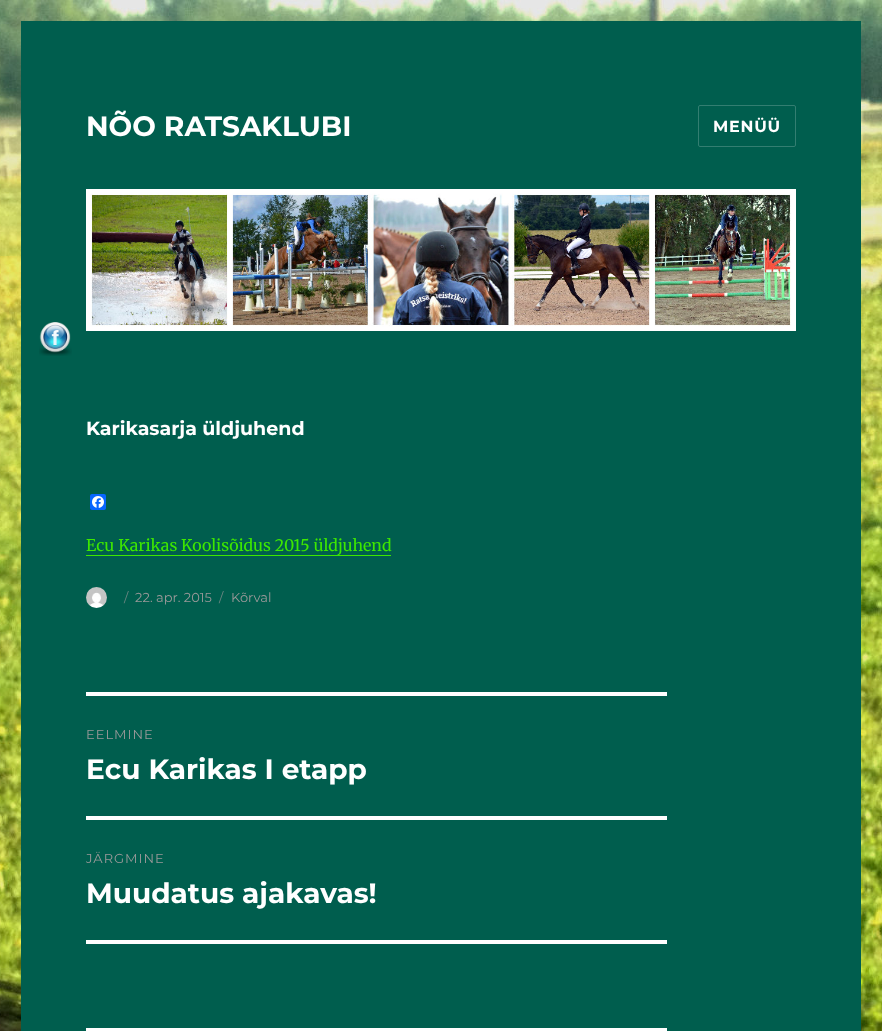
(async () => {
const canvas = document.querySelector("canvas")
canvas.width = 882
canvas.height = 1031
const c = canvas.getContext("2d")
c.miterLimit = 4
c.fontKerning = "normal"
function T(s,x,y){c.fillText(s,x,y)}
function R(x,y,w,h){c.fillRect(x,y,w,h)}
function Q(x,y,w,h,r){c.beginPath();c.roundRect(x,y,w,h,r);c.fill()}
async function I(src,x,y,w,h){const img=new Image();img.src=src;await img.decode();c.drawImage(img,x,y,w,h)}
c.fillStyle="#fff"
R(0,0,882,1031)
await I("1.png",0,0,882,1031)
c.fillStyle="#005e4e"
R(21,21,840,1010)
await I("2.png",39,322,33,34)
c.font="bold 28px Montserrat"
c.fillStyle="#fff"
T("NÕO RATSAKLUBI",86,136)
c.beginPath()
c.roundRect(698.5,105.5,97,41,1.5)
c.strokeStyle="#337e71"
c.stroke()
c.letterSpacing="0.75px"
c.font="bold 16px Montserrat"
T("MENÜÜ",713,132)
await I("3.png",86,189,710,142)
c.letterSpacing="0px"
c.font="bold 19px Montserrat"
T("Karikasarja üldjuhend",86,435)
c.fillStyle="#0866ff"
Q(90,494,16,16,2)
await I("4.png",92,496,12,12)
c.font="16px Merriweather"
c.fillStyle="#3de800"
T("Ecu Karikas Koolisõidus 2015 üldjuhend",86,551)
R(86,555,305,1)
await I("5.png",86,587,21,21)
c.font="13px Montserrat"
c.fillStyle="#6b8783"
T("/",124,602)
c.fillStyle="#999"
T("22. apr. 2015",135,602)
c.fillStyle="#6b8783"
T("/",219,602)
c.fillStyle="#999"
T("Kõrval",231,602)
c.fillStyle="#fff"
R(86,692,581,4)
R(86,940,581,4)
c.letterSpacing="1px"
c.fillStyle="#999"
T("EELMINE",86,739)
c.letterSpacing="0px"
c.font="bold 28px Montserrat"
c.fillStyle="#fff"
T("Ecu Karikas I etapp",86,779)
R(86,816,581,4)
c.letterSpacing="1px"
c.font="13px Montserrat"
c.fillStyle="#999"
T("JÄRGMINE",86,863)
c.letterSpacing="0px"
c.font="bold 28px Montserrat"
c.fillStyle="#fff"
T("Muudatus ajakavas!",86,903)
R(86,1028,581,3)
})()
